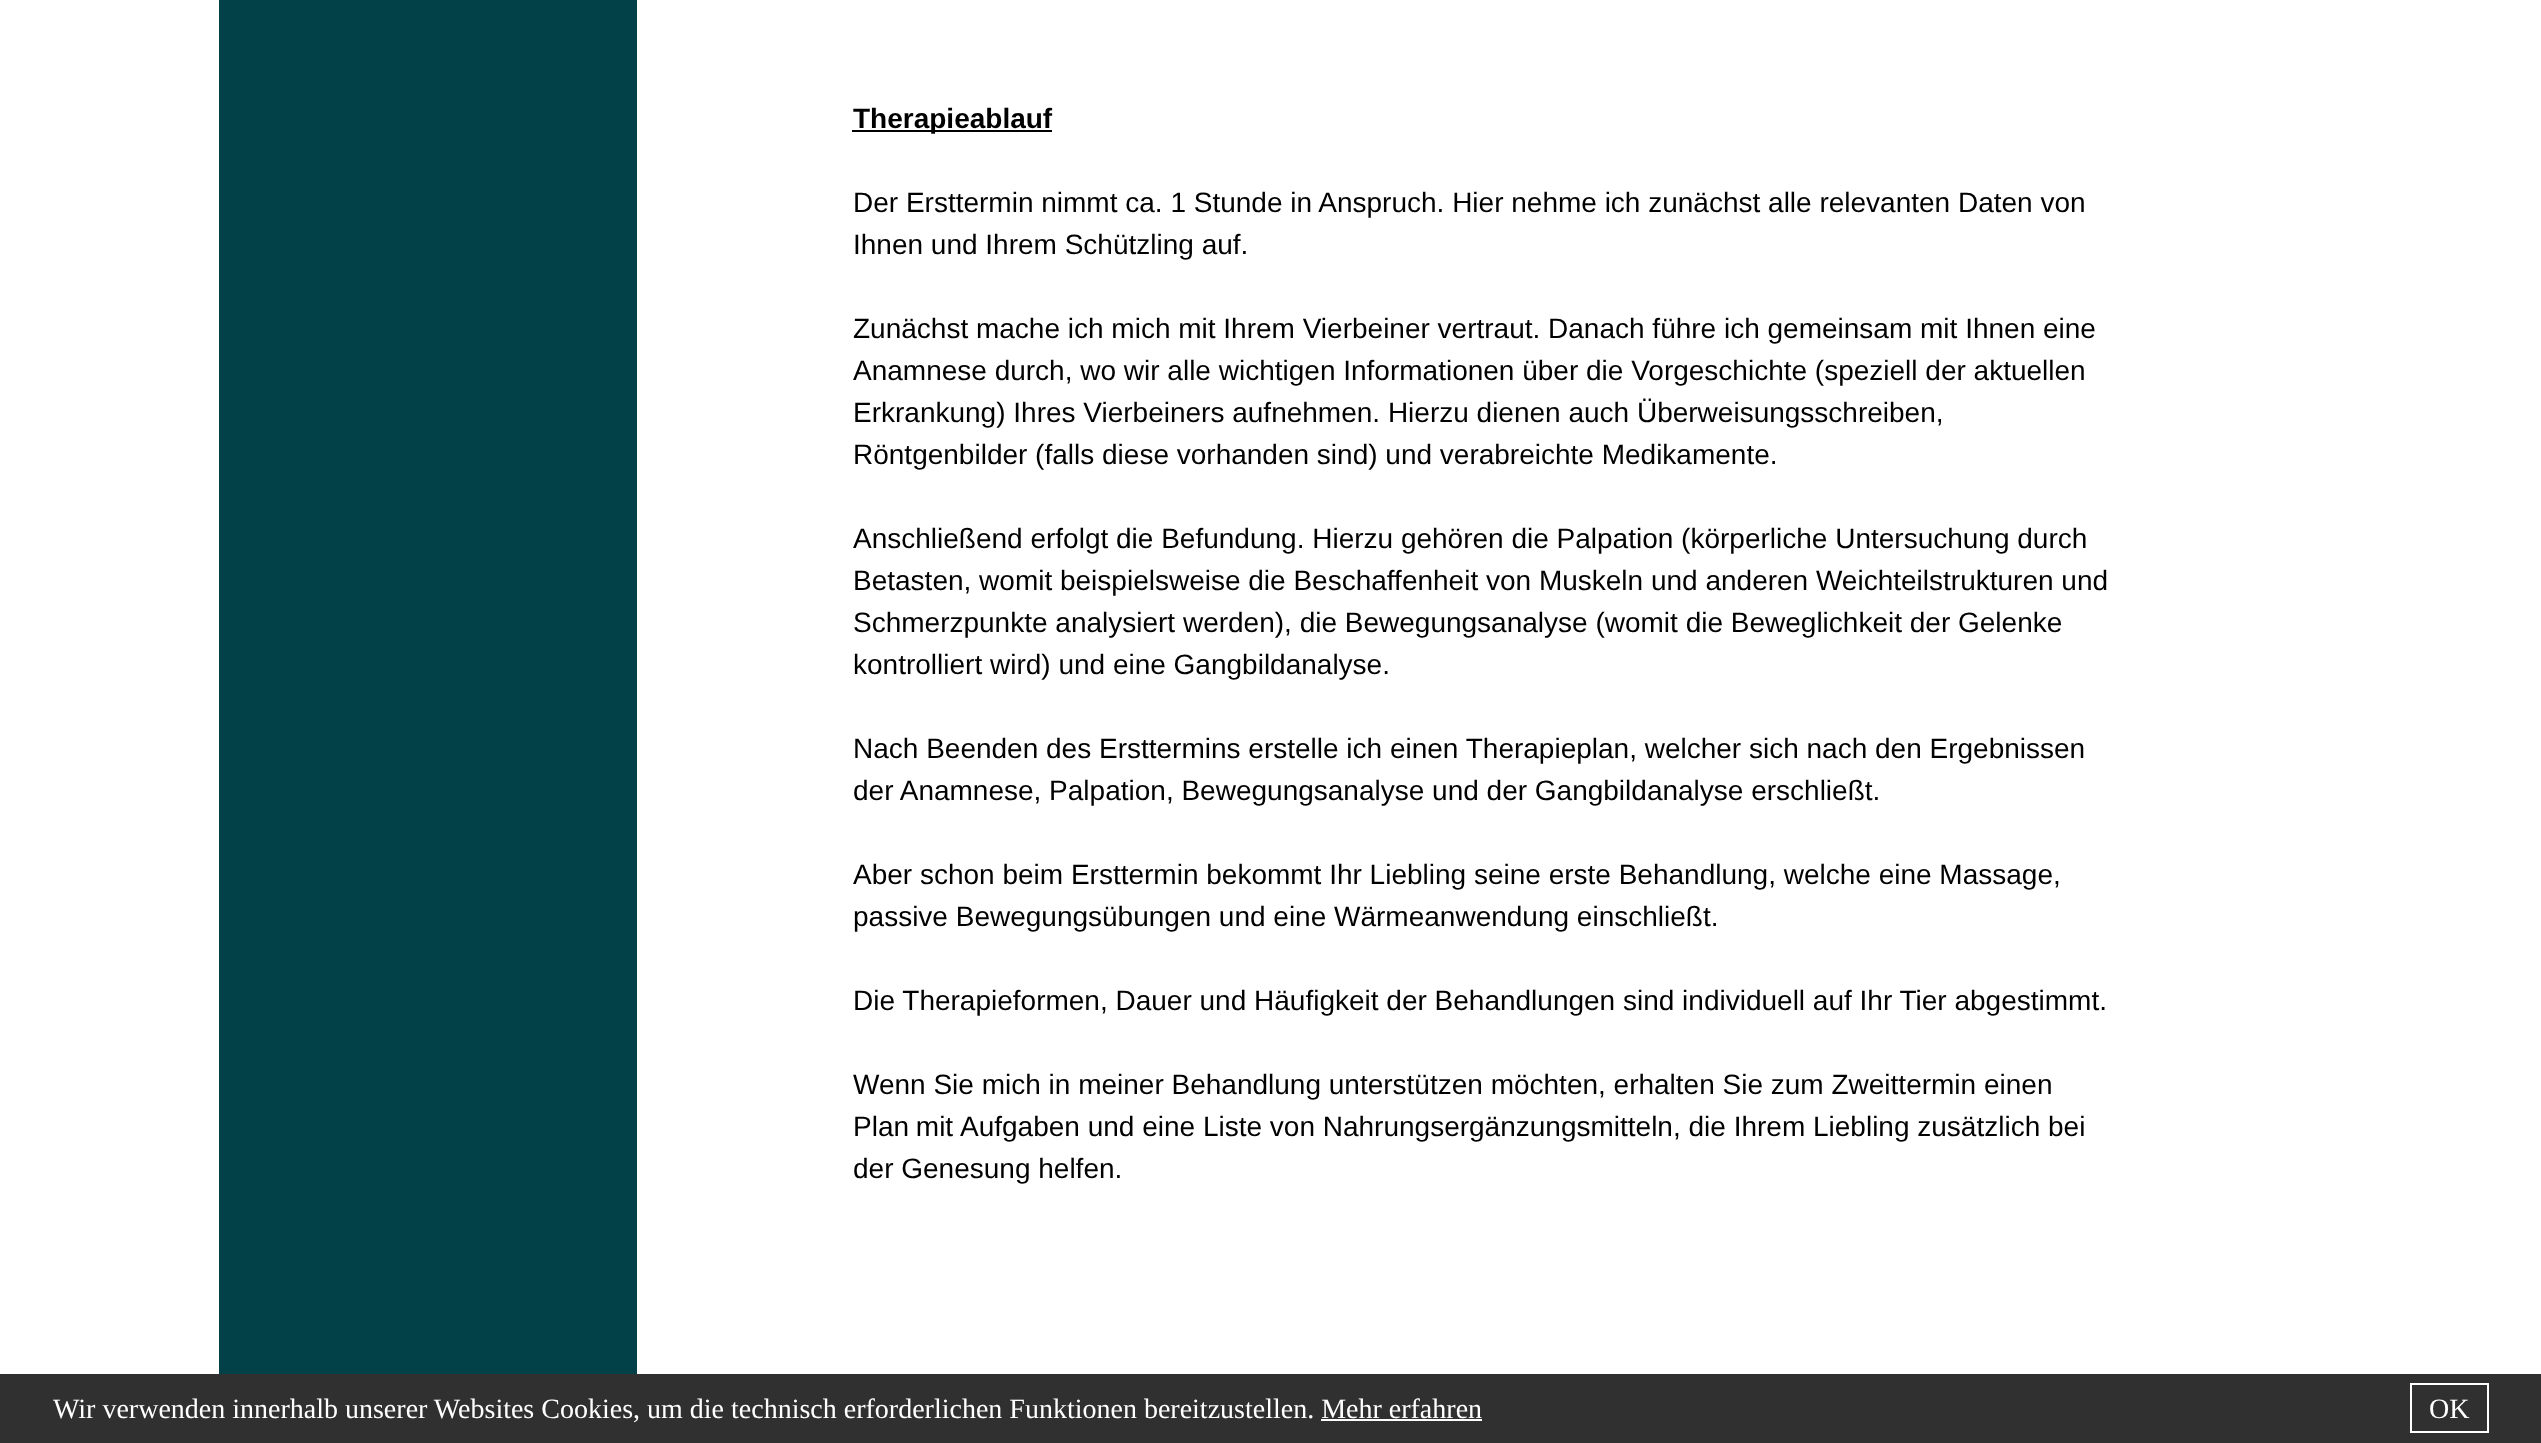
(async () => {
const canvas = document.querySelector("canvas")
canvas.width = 2541
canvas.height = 1443
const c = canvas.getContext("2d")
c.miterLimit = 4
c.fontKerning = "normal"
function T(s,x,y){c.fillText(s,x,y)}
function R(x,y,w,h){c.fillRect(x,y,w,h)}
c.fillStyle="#fff"
R(0,0,2541,1443)
c.fillStyle="#024148"
R(219,0,418,1374)
c.fillStyle="#000"
R(852,130,200,2)
c.font="bold 28px Liberation Sans"
T("Therapieablauf",853,128)
c.font="28px Liberation Sans"
T("Der Ersttermin nimmt ca. 1 Stunde in Anspruch. Hier nehme ich zunächst alle relevanten Daten von",853,212)
T("Ihnen und Ihrem Schützling auf.",853,254)
T("Zunächst mache ich mich mit Ihrem Vierbeiner vertraut. Danach führe ich gemeinsam mit Ihnen eine",853,338)
T("Anamnese durch, wo wir alle wichtigen Informationen über die Vorgeschichte (speziell der aktuellen",853,380)
T("Erkrankung) Ihres Vierbeiners aufnehmen. Hierzu dienen auch Überweisungsschreiben,",853,422)
T("Röntgenbilder (falls diese vorhanden sind) und verabreichte Medikamente.",853,464)
T("Anschließend erfolgt die Befundung. Hierzu gehören die Palpation (körperliche Untersuchung durch",853,548)
T("Betasten, womit beispielsweise die Beschaffenheit von Muskeln und anderen Weichteilstrukturen und",853,590)
T("Schmerzpunkte analysiert werden), die Bewegungsanalyse (womit die Beweglichkeit der Gelenke",853,632)
T("kontrolliert wird) und eine Gangbildanalyse.",853,674)
T("Nach Beenden des Ersttermins erstelle ich einen Therapieplan, welcher sich nach den Ergebnissen",853,758)
T("der Anamnese, Palpation, Bewegungsanalyse und der Gangbildanalyse erschließt.",853,800)
T("Aber schon beim Ersttermin bekommt Ihr Liebling seine erste Behandlung, welche eine Massage,",853,884)
T("passive Bewegungsübungen und eine Wärmeanwendung einschließt.",853,926)
T("Die Therapieformen, Dauer und Häufigkeit der Behandlungen sind individuell auf Ihr Tier abgestimmt.",853,1010)
T("Wenn Sie mich in meiner Behandlung unterstützen möchten, erhalten Sie zum Zweittermin einen",853,1094)
c.wordSpacing="-1px"
T("Plan mit",853,1136)
c.wordSpacing="0px"
T("Aufgaben und eine Liste von Nahrungsergänzungsmitteln, die Ihrem Liebling zusätzlich bei",960,1136)
T("der Genesung helfen.",853,1178)
c.fillStyle="#303030"
R(0,1374,2541,69)
c.font="28px Liberation Serif"
c.fillStyle="#fff"
T("Wir verwenden innerhalb unserer Websites Cookies, um die technisch erforderlichen Funktionen bereitzustellen. Mehr erfahren",53,1418)
R(1321,1419,161,2)
c.strokeStyle="#fff"
c.lineWidth=2
c.strokeRect(2411,1384,77,48)
T("OK",2429,1418)
})()
